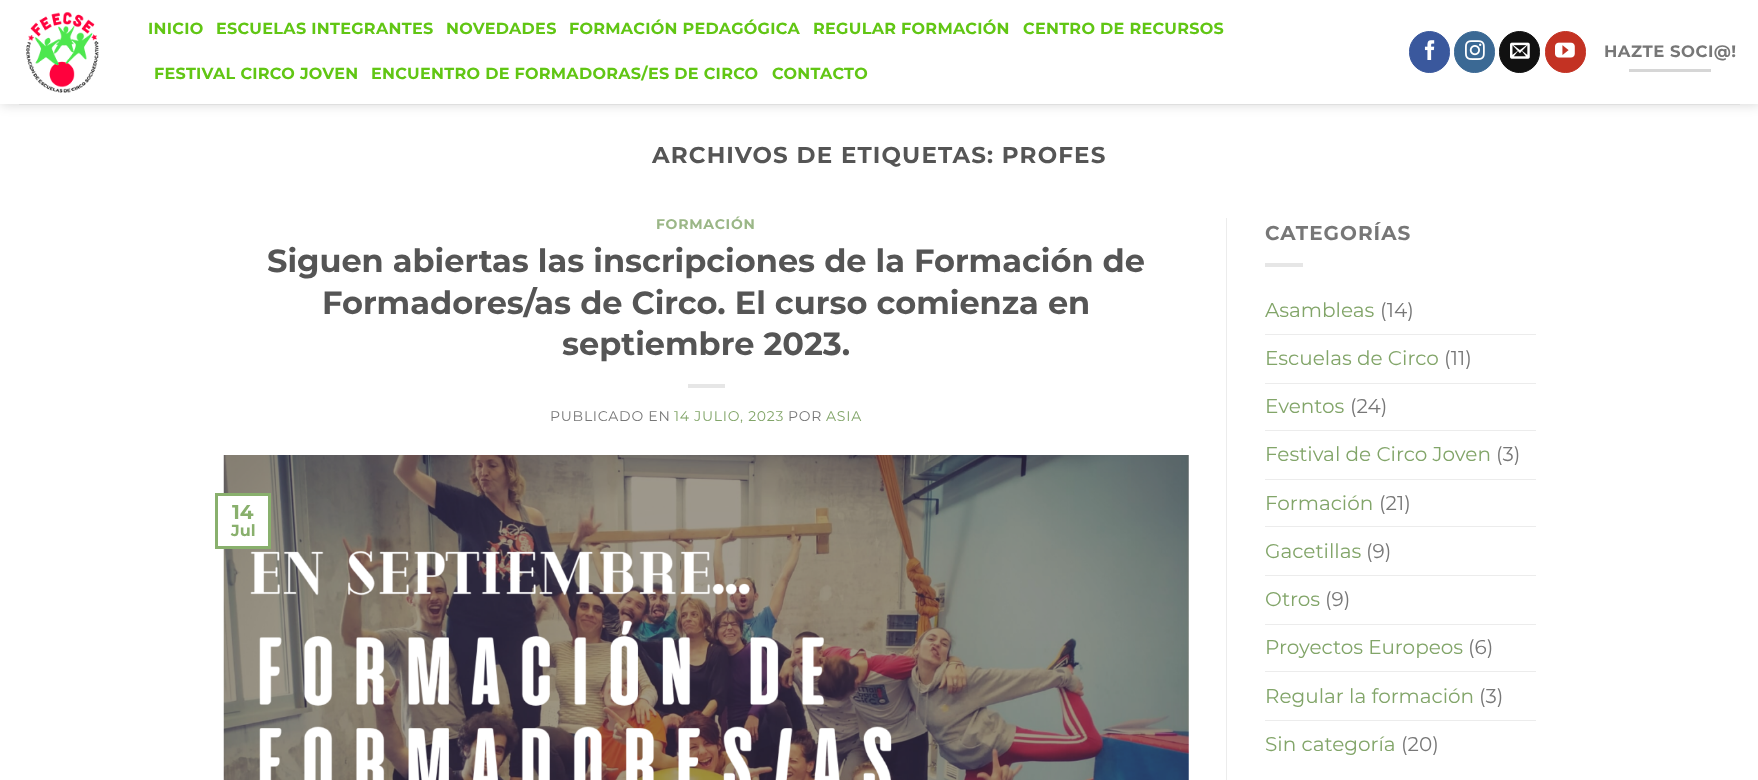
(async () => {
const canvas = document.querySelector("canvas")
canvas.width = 1758
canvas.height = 780
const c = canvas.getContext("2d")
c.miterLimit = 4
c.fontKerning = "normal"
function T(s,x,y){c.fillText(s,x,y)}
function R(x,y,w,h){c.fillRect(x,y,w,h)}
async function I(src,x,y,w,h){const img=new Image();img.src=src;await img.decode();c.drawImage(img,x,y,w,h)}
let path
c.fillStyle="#fff"
R(0,0,1758,780)
c.save()
path = new Path2D("M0 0h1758v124h-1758zm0 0h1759v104h-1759z")
c.clip(path,"evenodd")
c.fillStyle="#00000026"
c.filter="blur(6px)"
c.beginPath()
c.rect(1,1,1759,104)
c.fill()
c.filter="none"
c.restore()
c.fillStyle="#ffffffe6"
R(1,103,1757,1)
await I("1.png",26,12,73,81)
c.letterSpacing="0.3px"
c.font="bold 16px Montserrat"
c.fillStyle="#61c614"
T("INICIO",148,34)
T("ESCUELAS INTEGRANTES",216,34)
T("NOVEDADES",446,34)
T("FORMACIÓN PEDAGÓGICA",569,34)
T("REGULAR FORMACIÓN",813,34)
T("CENTRO DE RECURSOS",1023,34)
T("FESTIVAL CIRCO JOVEN",154,79)
T("ENCUENTRO DE FORMADORAS/ES DE CIRCO",371,79)
T("CONTACTO",772,79)
c.fillStyle="#3a589d"
c.beginPath()
c.roundRect(1409.5,31.5,40,41,20)
c.fill()
c.strokeStyle="#3a589d"
c.stroke()
await I("2.png",1424,40,11,20)
c.fillStyle="#3b6994"
c.beginPath()
c.roundRect(1454.5,31.5,40,41,20)
c.fill()
c.strokeStyle="#3b6994"
c.stroke()
await I("3.png",1465,40,20,20)
c.fillStyle="#111"
c.beginPath()
c.roundRect(1499.5,31.5,40,41,20)
c.fill()
c.strokeStyle="#111"
c.stroke()
await I("4.png",1510,42,20,17)
c.fillStyle="#c33223"
c.beginPath()
c.roundRect(1545.5,31.5,40,41,20)
c.fill()
c.strokeStyle="#c33223"
c.stroke()
await I("5.png",1555,42,20,16)
c.letterSpacing="0.5px"
c.font="bold 16.5px Montserrat"
c.fillStyle="#777"
T("HAZTE SOCI@!",1604,57)
c.fillStyle="#d6d6d6"
R(1629,69,82,3)
c.fillStyle="#dfdfdf"
R(19,104,1721,1)
c.letterSpacing="1.15px"
c.font="bold 23px Montserrat"
c.fillStyle="#555"
T("ARCHIVOS DE ETIQUETAS: PROFES",652,163)
c.letterSpacing="0.75px"
c.font="bold 14px Montserrat"
c.fillStyle="#9bb787"
T("FORMACIÓN",656,229)
c.letterSpacing="0px"
c.font="bold 32px Montserrat"
c.fillStyle="#555"
T("Siguen abiertas las inscripciones de la Formación de",267,272)
T("Formadores/as de Circo. El curso comienza en",322,314)
T("septiembre 2023.",562,355)
c.fillStyle="#e6e6e6"
R(688,384,37,4)
c.letterSpacing="0.75px"
c.font="14px Montserrat"
c.fillStyle="#777"
T("PUBLICADO EN",550,421)
c.fillStyle="#82a569"
T("14 JULIO, 2023",674,421)
c.fillStyle="#777"
T("POR",788,421)
c.fillStyle="#82a569"
T("ASIA",826,421)
await I("6.png",223,455,966,325)
c.fillStyle="#fff"
R(223,496,45,50)
c.strokeStyle="#89b06d"
c.lineWidth=3
c.strokeRect(216.5,494.5,53,53)
c.letterSpacing="0px"
c.font="bold 20px Montserrat"
c.fillStyle="#89b06d"
T("14",232,519)
c.font="bold 16px Montserrat"
T("Jul",231,536)
c.fillStyle="#ececec"
R(1226,218,1,562)
c.letterSpacing="1px"
c.font="bold 20px Montserrat"
c.fillStyle="#777"
T("CATEGORÍAS",1265,240)
c.fillStyle="#e6e6e6"
R(1265,263,38,4)
c.letterSpacing="0px"
c.font="20px Montserrat"
c.fillStyle="#82a569"
T("Asambleas",1265,317)
c.fillStyle="#777"
T("(14)",1380,317)
c.fillStyle="#ececec"
R(1265,334,271,1)
c.fillStyle="#82a569"
T("Escuelas de Circo",1265,365)
c.fillStyle="#777"
T("(11)",1444,365)
c.fillStyle="#ececec"
R(1265,383,271,1)
c.fillStyle="#82a569"
T("Eventos",1265,413)
c.fillStyle="#777"
T("(24)",1350,413)
c.fillStyle="#ececec"
R(1265,430,271,1)
c.fillStyle="#82a569"
T("Festival de Circo Joven",1265,461)
c.fillStyle="#777"
T("(3)",1496,461)
c.fillStyle="#ececec"
R(1265,479,271,1)
c.fillStyle="#82a569"
T("Formación",1265,510)
c.fillStyle="#777"
T("(21)",1379,510)
c.fillStyle="#ececec"
R(1265,526,271,1)
c.fillStyle="#82a569"
T("Gacetillas",1265,558)
c.fillStyle="#777"
T("(9)",1366,558)
c.fillStyle="#ececec"
R(1265,575,271,1)
c.fillStyle="#82a569"
T("Otros",1265,606)
c.fillStyle="#777"
T("(9)",1325,606)
c.fillStyle="#ececec"
R(1265,624,271,1)
c.fillStyle="#82a569"
T("Proyectos Europeos",1265,654)
c.fillStyle="#777"
T("(6)",1468,654)
c.fillStyle="#ececec"
R(1265,671,271,1)
c.fillStyle="#82a569"
T("Regular la formación",1265,703)
c.fillStyle="#777"
T("(3)",1479,703)
c.fillStyle="#ececec"
R(1265,720,271,1)
c.fillStyle="#82a569"
T("Sin categoría",1265,751)
c.fillStyle="#777"
T("(20)",1401,751)
})()
